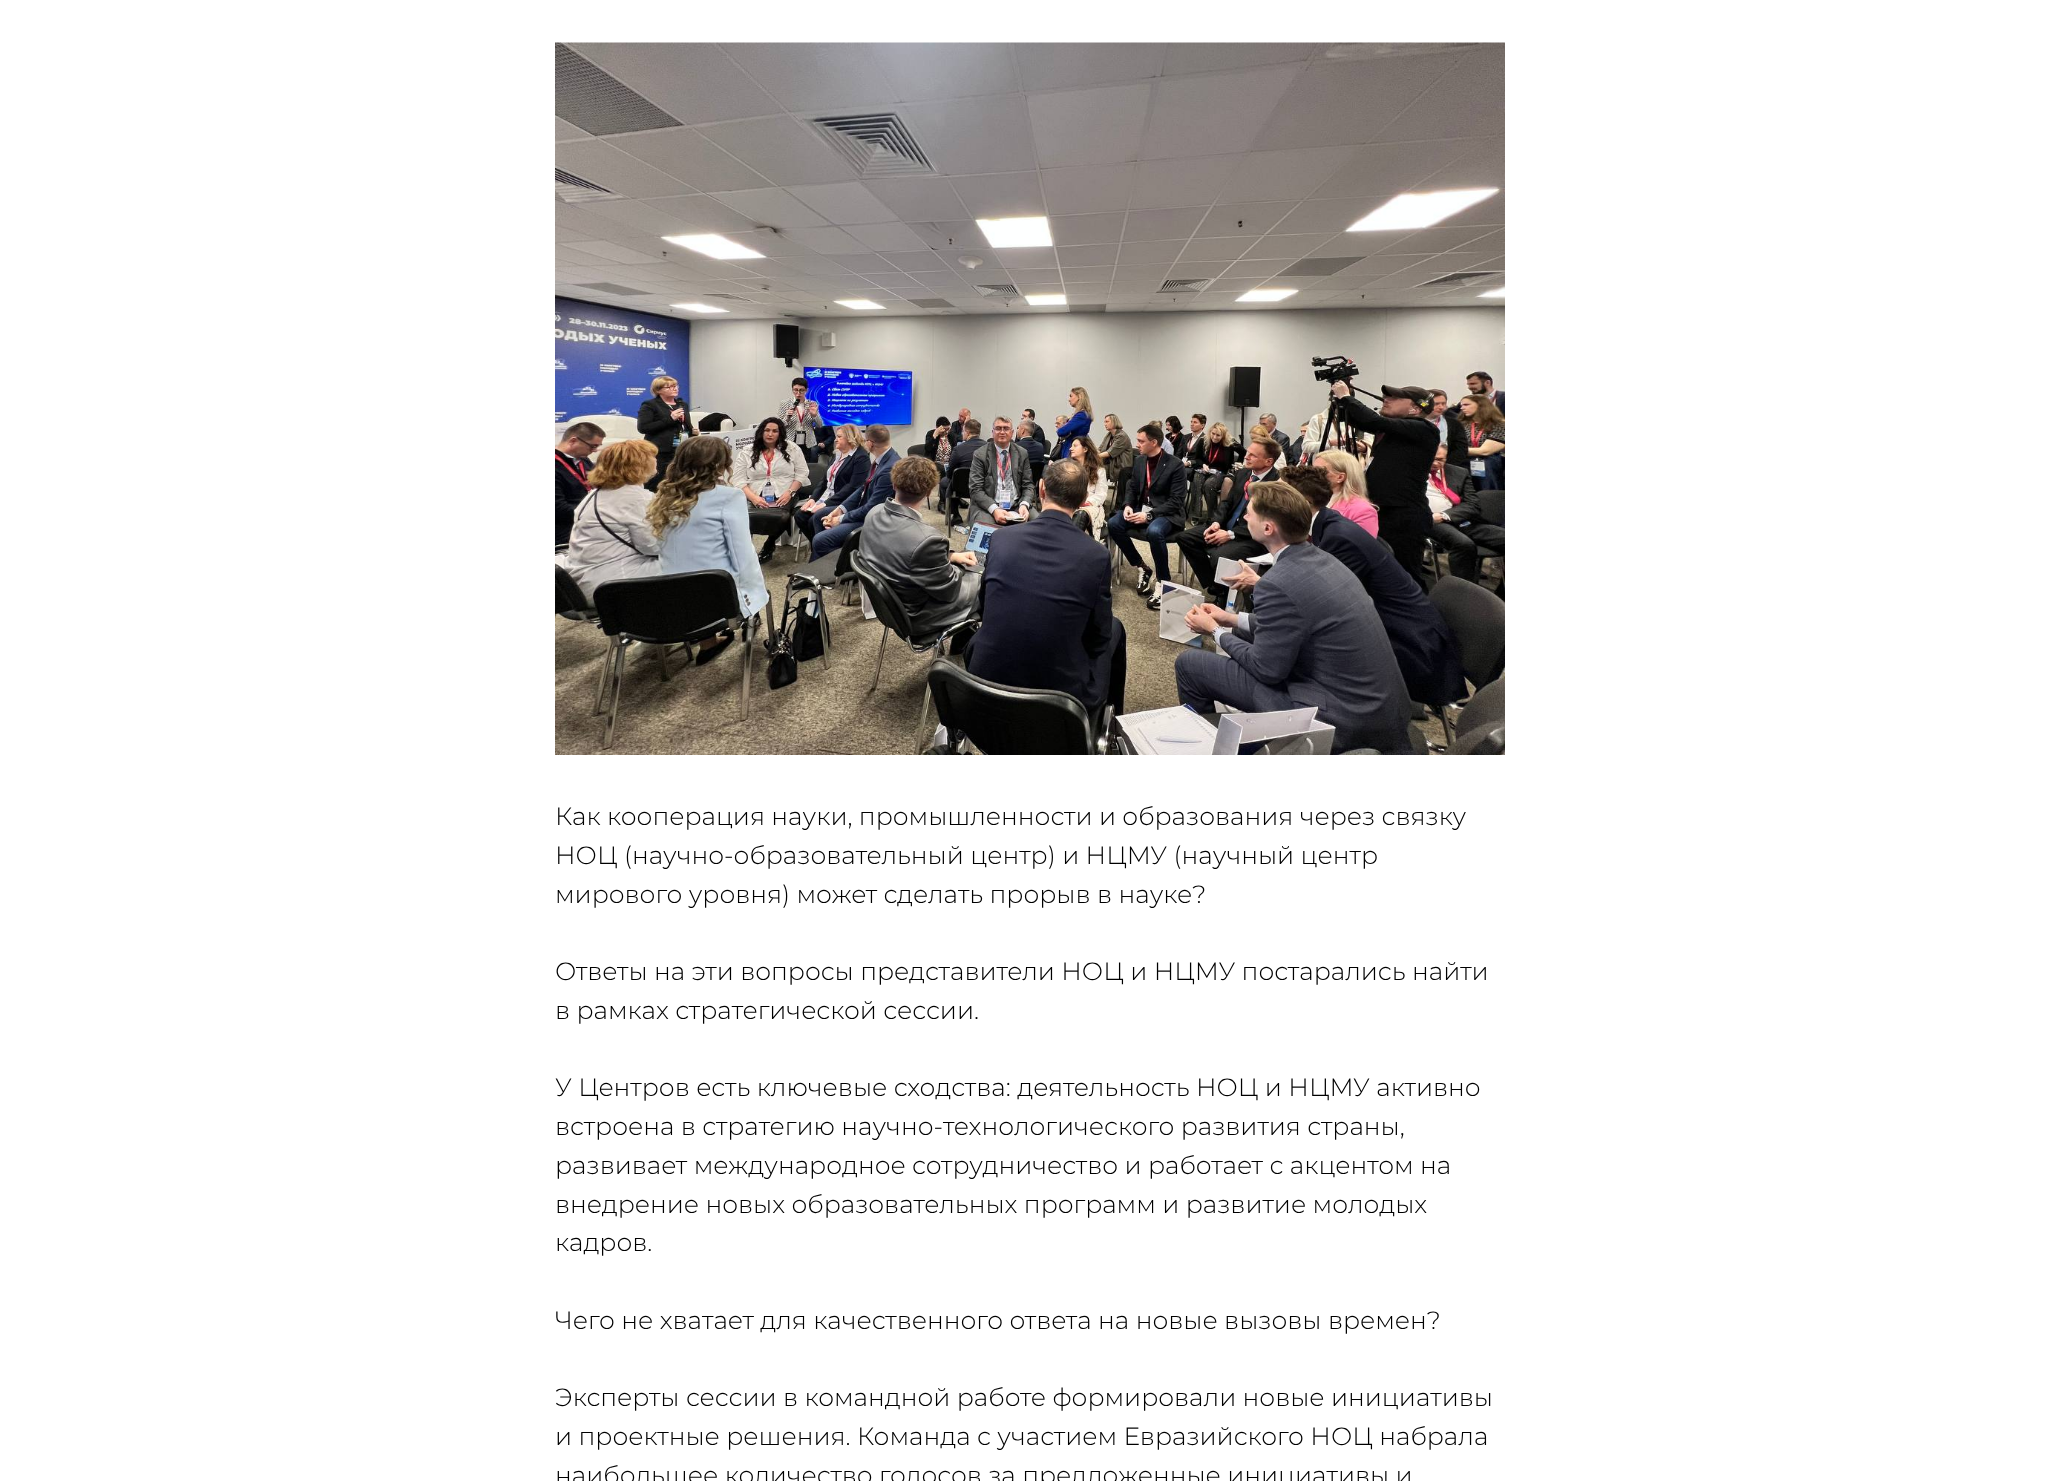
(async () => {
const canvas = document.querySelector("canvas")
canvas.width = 2060
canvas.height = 1481
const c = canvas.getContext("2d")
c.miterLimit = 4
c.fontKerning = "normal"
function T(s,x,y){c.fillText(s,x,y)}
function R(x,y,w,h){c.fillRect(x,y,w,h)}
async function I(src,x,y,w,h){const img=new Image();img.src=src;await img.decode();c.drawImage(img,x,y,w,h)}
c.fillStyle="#fff"
R(0,0,2060,1481)
await I("1.png",555,42,950,713)
c.font="300 25px Montserrat"
c.fillStyle="#000"
T("Как кооперация науки, промышленности и образования через связку",555,825)
T("НОЦ (научно-образовательный центр) и НЦМУ (научный центр",555,864)
T("мирового уровня) может сделать прорыв в науке?",555,903)
T("Ответы на эти вопросы представители НОЦ и НЦМУ постарались найти",555,980)
T("в рамках стратегической сессии.",555,1019)
T("У Центров есть ключевые сходства: деятельность НОЦ и НЦМУ активно",555,1096)
T("встроена в стратегию научно-технологического развития страны,",555,1135)
T("развивает международное сотрудничество и работает с акцентом на",555,1174)
T("внедрение новых образовательных программ и развитие молодых",555,1213)
T("кадров.",555,1251)
T("Чего не хватает для качественного ответа на новые вызовы времен?",555,1329)
T("Эксперты сессии в командной работе формировали новые инициативы",555,1406)
T("и проектные решения. Команда с участием Евразийского НОЦ набрала",555,1445)
T("наибольшее количество голосов за предложенные инициативы и",555,1484)
})()
